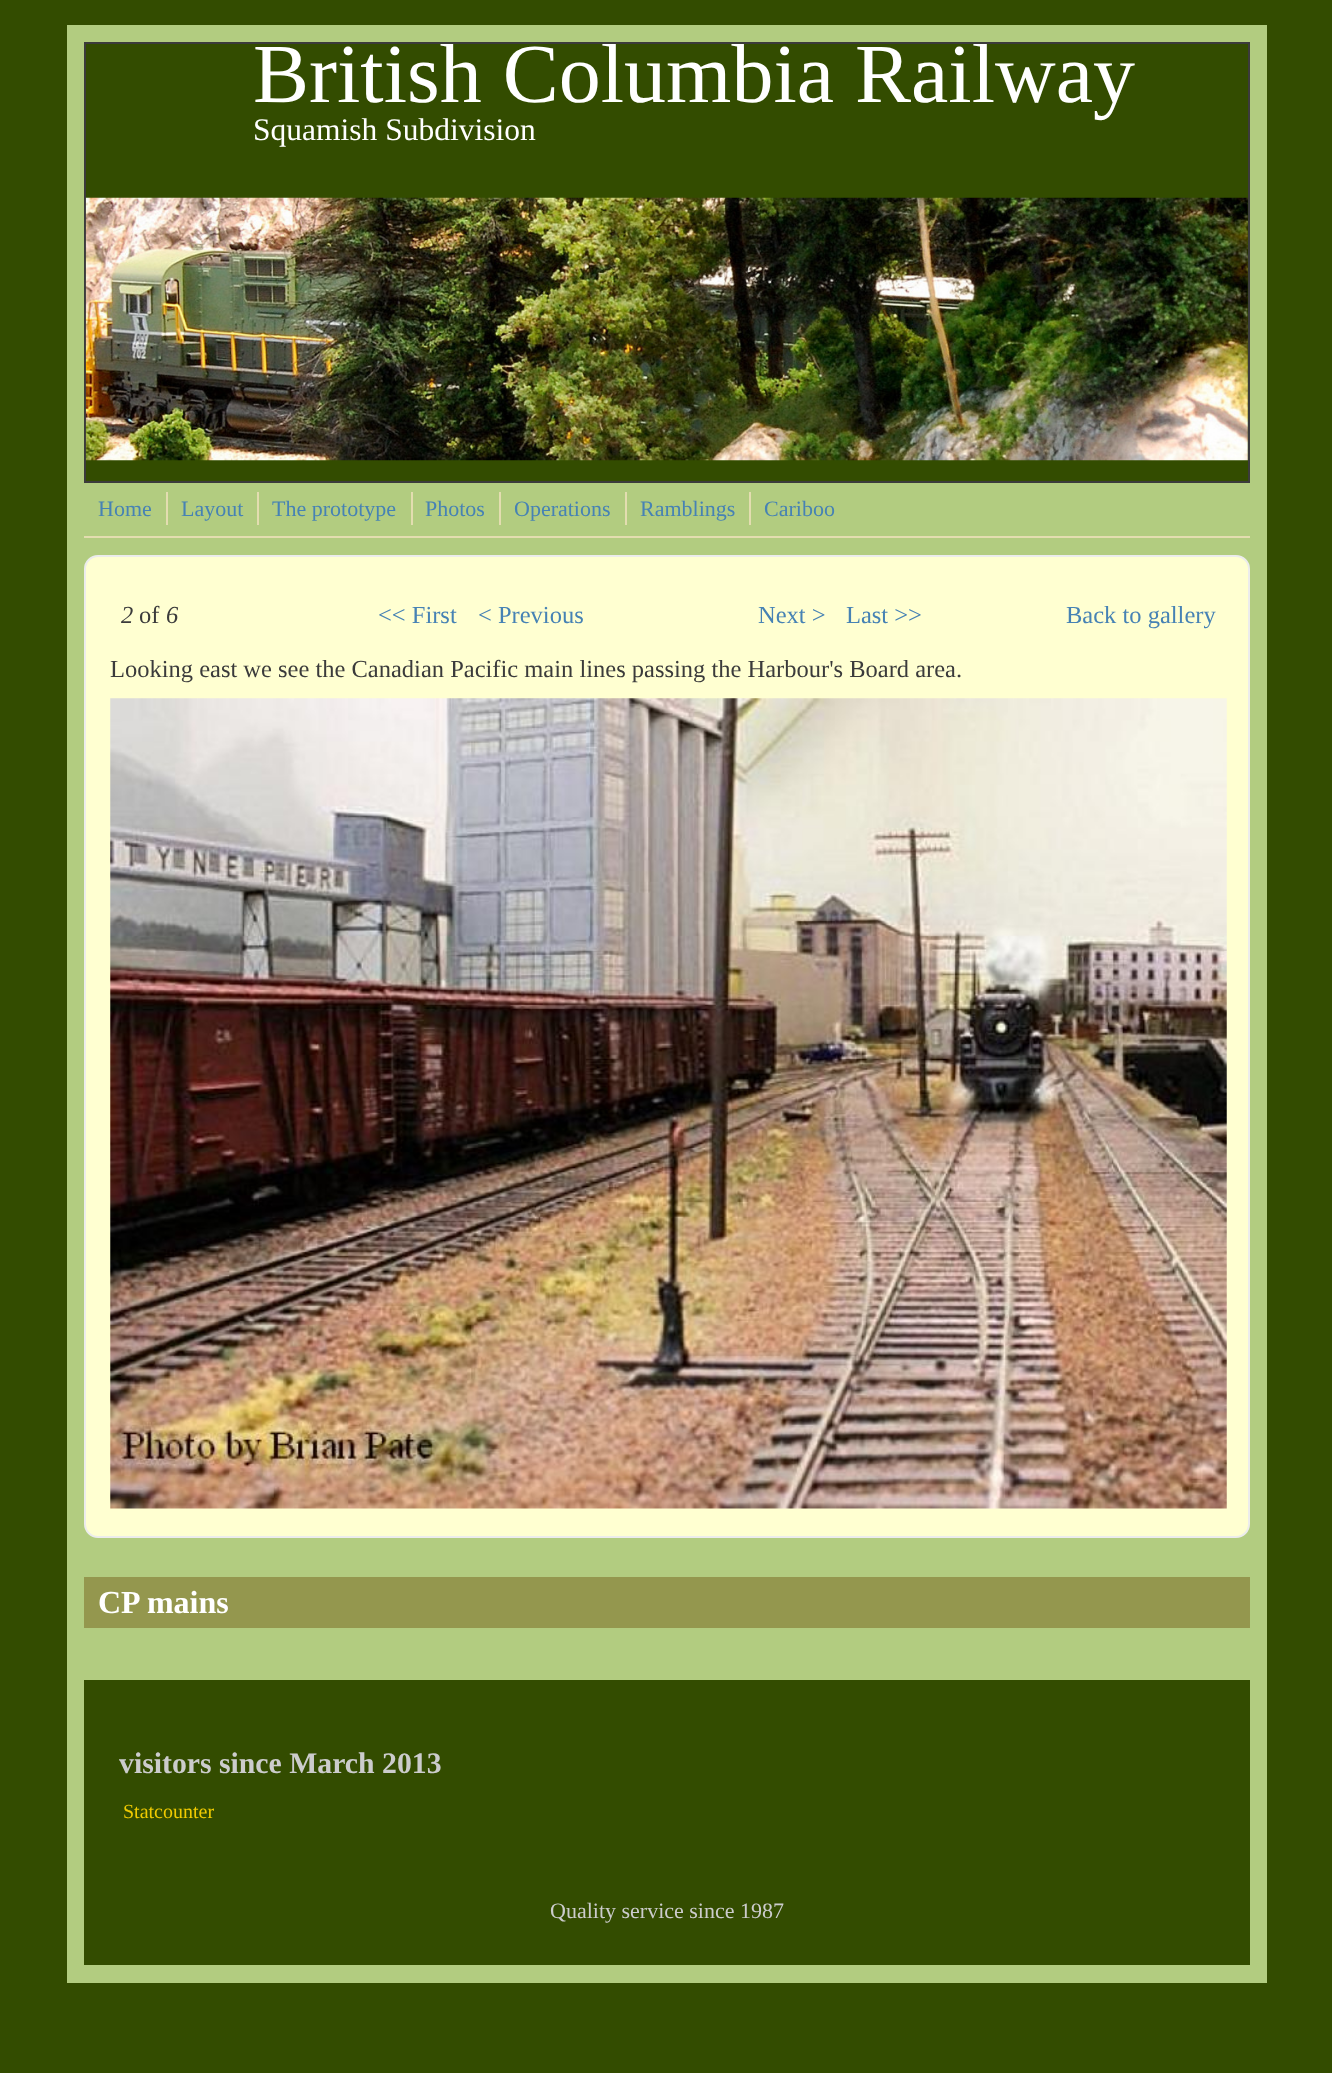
(async () => {
const canvas = document.querySelector("canvas")
canvas.width = 1332
canvas.height = 2073
const c = canvas.getContext("2d")
c.miterLimit = 4
c.fontKerning = "normal"
function T(s,x,y){c.fillText(s,x,y)}
function R(x,y,w,h){c.fillRect(x,y,w,h)}
async function I(src,x,y,w,h){const img=new Image();img.src=src;await img.decode();c.drawImage(img,x,y,w,h)}
c.fillStyle="#334c00"
R(0,0,1332,2073)
c.fillStyle="#b2cc80"
R(67,25,1200,1958)
c.fillStyle="#334c00"
c.beginPath()
c.rect(85,43,1164,439)
c.fill()
c.strokeStyle="#3b3b3b"
c.lineWidth=2
c.stroke()
c.save()
c.beginPath()
c.rect(86,44,1162,437)
c.clip()
c.font="84px Liberation Serif"
c.fillStyle="#fff"
T("British Columbia Railway",253,102)
c.restore()
c.font="31.5px Liberation Serif"
c.fillStyle="#fff"
T("Squamish Subdivision",253,140)
await I("1.png",85,197,1163,264)
c.fillStyle="#e3ddb0"
R(84,536,1166,2)
c.font="22px Liberation Serif"
c.fillStyle="#4682b4"
T("Home",98,516)
c.fillStyle="#e3ddb0"
R(166,492,2,33)
c.fillStyle="#4682b4"
T("Layout",181,516)
c.fillStyle="#e3ddb0"
R(257,492,2,33)
c.fillStyle="#4682b4"
T("The prototype",272,516)
c.fillStyle="#e3ddb0"
R(411,492,2,33)
c.fillStyle="#4682b4"
T("Photos",425,516)
c.fillStyle="#e3ddb0"
R(499,492,2,33)
c.fillStyle="#4682b4"
T("Operations",514,516)
c.fillStyle="#e3ddb0"
R(625,492,2,33)
c.fillStyle="#4682b4"
T("Ramblings",640,516)
c.fillStyle="#e3ddb0"
R(749,492,2,33)
c.fillStyle="#4682b4"
T("Cariboo",764,516)
c.fillStyle="#ffffd1"
c.beginPath()
c.roundRect(85,556,1164,981,13)
c.fill()
c.strokeStyle="#ececec"
c.stroke()
c.font="italic 24.5px Liberation Serif"
c.fillStyle="#3b3b3b"
T("2",121,623)
c.font="24.5px Liberation Serif"
T("of",139,623)
c.font="italic 24.5px Liberation Serif"
T("6",166,623)
c.font="24.5px Liberation Serif"
c.fillStyle="#4682b4"
T("<< First",378,623)
T("< Previous",478,623)
T("Next >",758,623)
T("Last >>",846,623)
T("Back to gallery",1066,623)
c.fillStyle="#3b3b3b"
T("Looking east we see the Canadian Pacific main lines passing the Harbour's Board area.",110,677)
await I("2.png",110,698,1117,811)
c.fillStyle="#94974e"
R(84,1577,1166,51)
c.font="bold 32px Liberation Serif"
c.fillStyle="#fff"
T("CP mains",98,1613)
c.fillStyle="#334c00"
R(84,1680,1166,285)
c.font="bold 29.75px Liberation Serif"
c.fillStyle="#ccc"
T("visitors since March 2013",119,1773)
c.font="20px Liberation Serif"
c.fillStyle="#f0cb00"
T("Statcounter",123,1818)
c.font="22px Liberation Serif"
c.fillStyle="#ccc"
T("Quality service since 1987",550,1918)
})()
